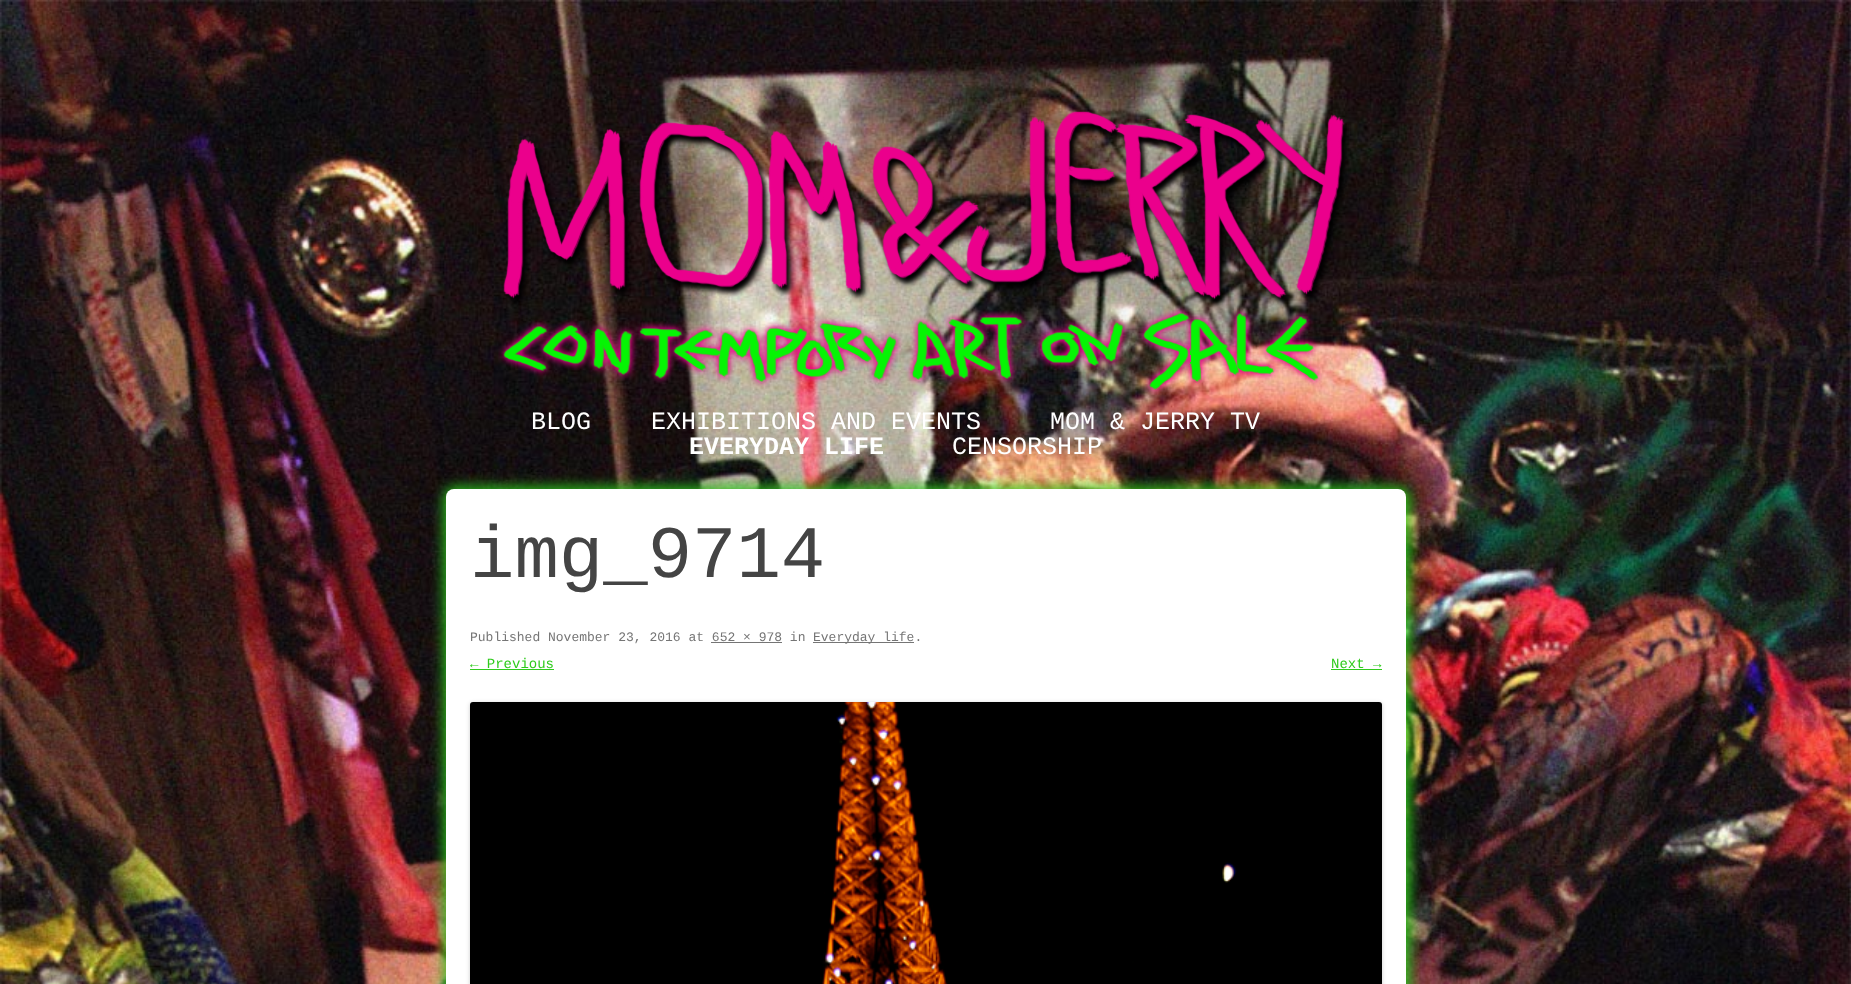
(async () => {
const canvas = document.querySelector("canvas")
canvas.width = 1851
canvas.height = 984
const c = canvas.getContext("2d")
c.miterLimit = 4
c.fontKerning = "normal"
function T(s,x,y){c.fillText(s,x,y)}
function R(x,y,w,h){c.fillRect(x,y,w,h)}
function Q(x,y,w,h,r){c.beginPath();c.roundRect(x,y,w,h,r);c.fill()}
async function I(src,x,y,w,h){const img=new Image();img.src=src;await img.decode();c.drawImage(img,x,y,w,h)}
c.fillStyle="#fff"
R(0,0,1851,984)
await I("1.png",0,0,1851,984)
await I("2.png",498,111,851,284)
c.font="25px Liberation Mono"
T("BLOG",531,429)
T("EXHIBITIONS AND EVENTS",651,429)
T("MOM & JERRY TV",1050,429)
c.font="bold 25px Liberation Mono"
T("EVERYDAY LIFE",689,454)
c.font="25px Liberation Mono"
T("CENSORSHIP",952,454)
c.fillStyle="#30cb1d"
c.filter="blur(7px)"
c.beginPath()
c.roundRect(444,487,966,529,11)
c.fill()
c.filter="none"
c.fillStyle="#fff"
Q(446,489,960,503,8)
c.font="74px Liberation Mono"
c.fillStyle="#444"
T("img_9714",470,577)
c.font="13px Liberation Mono"
c.fillStyle="#757575"
T("Published November 23, 2016 at 652 × 978 in",470,641)
R(813,642,101,1)
T("Everyday life.",813,641)
R(711,642,71,1)
c.font="14px Liberation Mono"
c.fillStyle="#30cb1d"
T("← Previous",470,668)
R(470,669,84,1)
T("Next →",1331,668)
R(1331,669,51,1)
c.fillStyle="#00000033"
c.filter="blur(2px)"
c.beginPath()
c.roundRect(470,703,912,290,3)
c.fill()
c.filter="none"
await I("3.png",470,702,912,282)
})()
